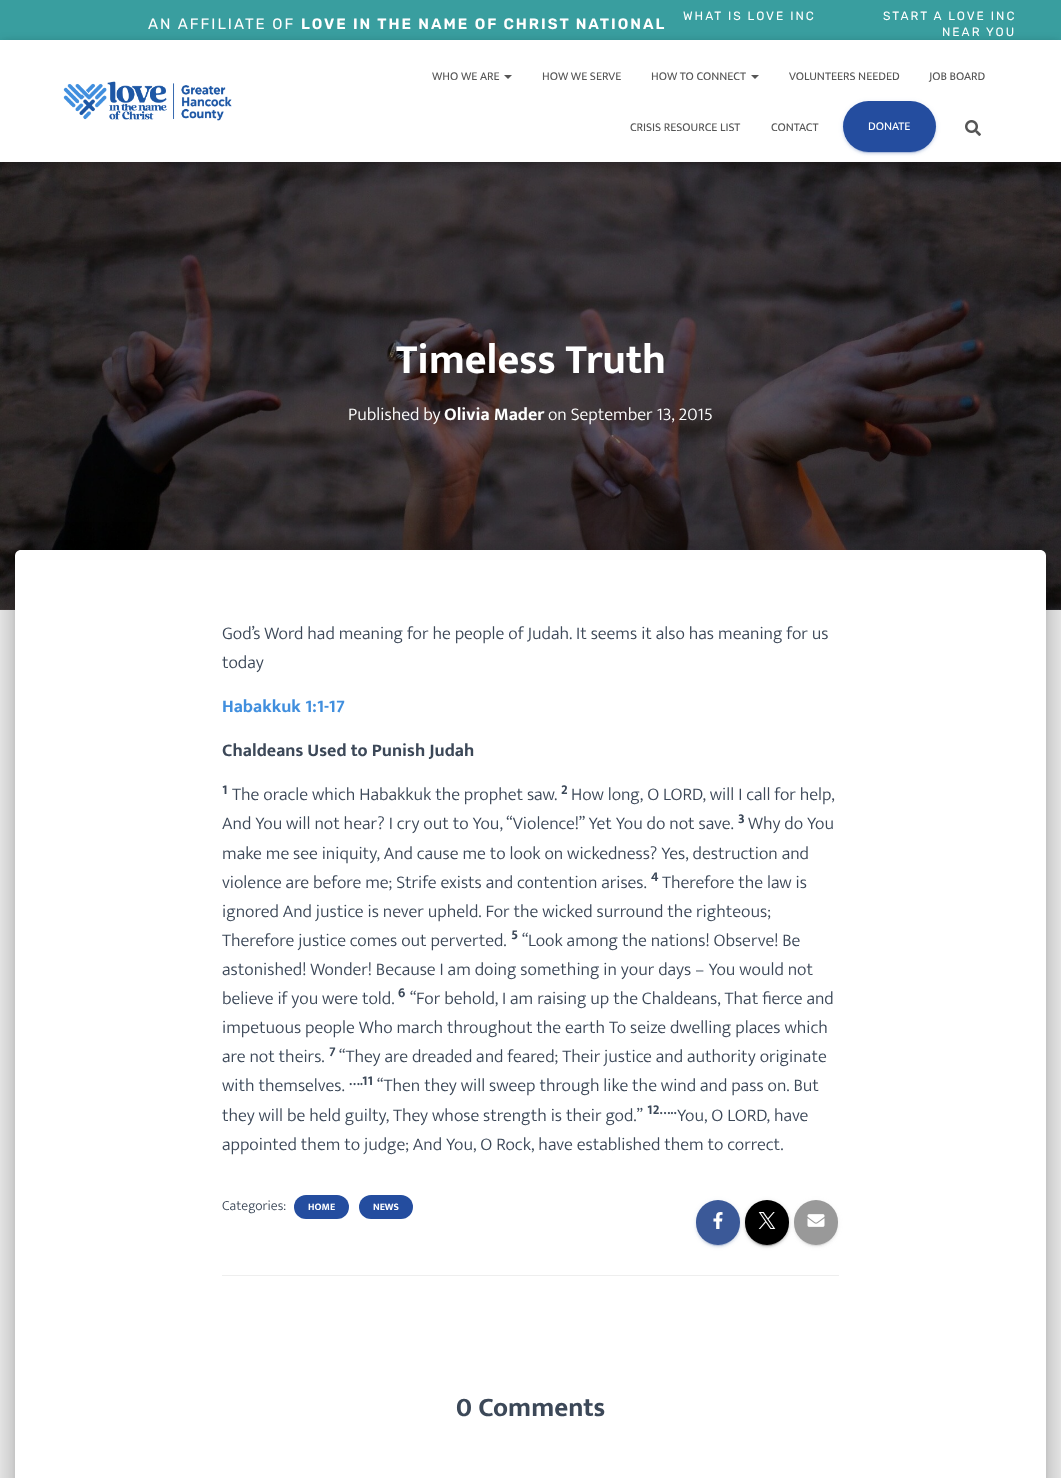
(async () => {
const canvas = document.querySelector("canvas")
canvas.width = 1061
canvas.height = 1478
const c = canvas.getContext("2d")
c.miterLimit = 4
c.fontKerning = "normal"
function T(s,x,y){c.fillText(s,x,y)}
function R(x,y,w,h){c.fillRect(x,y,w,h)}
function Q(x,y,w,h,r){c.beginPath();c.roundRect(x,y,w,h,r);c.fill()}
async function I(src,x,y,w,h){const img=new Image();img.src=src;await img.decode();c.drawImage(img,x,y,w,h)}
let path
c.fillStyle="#efefef"
R(0,0,1061,1478)
c.fillStyle="#399e9f"
R(0,0,1061,40)
c.letterSpacing="2px"
c.font="15px Rubik"
c.fillStyle="#fff"
T("AN AFFILIATE OF",148,29)
c.font="600 15px Rubik"
T("LOVE IN THE NAME OF CHRIST NATIONAL",301,29)
c.font="12px Rubik"
T("WHAT IS LOVE INC",683,20)
T("START A LOVE INC",883,20)
T("NEAR YOU",942,36)
await I("3.png",0,162,1061,448)
c.fillStyle="#0000001a"
c.filter="blur(2.5px)"
c.beginPath()
c.rect(2,46,1057,118)
c.fill()
c.filter="none"
c.fillStyle="#0000001f"
c.filter="blur(5px)"
c.beginPath()
c.rect(0,41,1061,122)
c.fill()
c.filter="none"
c.fillStyle="#0000006b"
c.filter="blur(5px)"
c.beginPath()
c.rect(6,47,1049,110)
c.fill()
c.filter="none"
c.fillStyle="#fff"
R(0,40,1061,122)
await I("1.png",63,81,169,40)
c.letterSpacing="0px"
c.font="12px Mukta"
c.fillStyle="#555"
T("WHO WE ARE",432,80)
path = new Path2D("M504 75h8l-4 4z")
c.fill(path)
T("HOW WE SERVE",542,80)
T("HOW TO CONNECT",651,80)
path = new Path2D("M751 75h8l-4 4z")
c.fill(path)
T("VOLUNTEERS NEEDED",789,80)
T("JOB BOARD",929,80)
T("CRISIS RESOURCE LIST",630,131)
T("CONTACT",771,131)
c.fillStyle="#244d9f1f"
c.filter="blur(2.5px)"
c.beginPath()
c.roundRect(843,102,93,51,25.5)
c.fill()
c.filter="none"
c.fillStyle="#244d9f33"
c.filter="blur(0.5px)"
c.beginPath()
c.roundRect(845,106,89,47,23.5)
c.fill()
c.filter="none"
c.fillStyle="#244d9f24"
c.filter="blur(1px)"
c.beginPath()
c.roundRect(843,103,93,51,25.5)
c.fill()
c.filter="none"
c.fillStyle="#244d9f"
Q(843,101,93,51,25.5)
c.fillStyle="#fff"
T("DONATE",868,130)
await I("2.png",965,120,16,16)
c.font="bold 42px Mukta"
T("Timeless Truth",396,373)
c.font="300 18px Mukta"
T("Published by",348,420)
c.font="bold 18px Mukta"
T("Olivia Mader",444,420)
c.font="300 18px Mukta"
T("on September 13, 2015",548,420)
c.fillStyle="#00000033"
c.filter="blur(5px)"
c.beginPath()
c.roundRect(20,563,1021,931,1)
c.fill()
c.filter="none"
c.fillStyle="#0000001f"
c.filter="blur(15px)"
c.beginPath()
c.roundRect(10,551,1041,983,11)
c.fill()
c.filter="none"
c.fillStyle="#00000024"
c.filter="blur(12px)"
c.beginPath()
c.roundRect(13,564,1035,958,8)
c.fill()
c.filter="none"
c.fillStyle="#fff"
path = new Path2D("M21 550h1019c3.5 0 6 2.5 6 6v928h-1031v-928c0-3.5 2.5-6 6-6z")
c.fill(path)
c.fillStyle="#3c4858"
T("God’s Word had meaning for he people of Judah. It seems it also has meaning for us",222,639)
T("today",222,668)
c.font="bold 18px Mukta"
c.fillStyle="#418fde"
T("Habakkuk 1:1-17",222,712)
c.fillStyle="#3c4858"
T("Chaldeans Used to Punish Judah",222,756)
c.font="bold 13.5px Mukta"
T("1",222,794)
c.font="300 18px Mukta"
T("The oracle which Habakkuk the prophet saw.",232,800)
c.font="bold 13.5px Mukta"
T("2",561,794)
c.font="300 18px Mukta"
T("How long, O LORD, will I call for help,",571,800)
T("And You will not hear? I cry out to You, “Violence!” Yet You do not save.",222,829)
c.font="bold 13.5px Mukta"
T("3",738,823)
c.font="300 18px Mukta"
T("Why do You",748,829)
T("make me see iniquity, And cause me to look on wickedness? Yes, destruction and",222,859)
T("violence are before me; Strife exists and contention arises.",222,888)
c.font="bold 13.5px Mukta"
T("4",651,881)
c.font="300 18px Mukta"
T("Therefore the law is",662,888)
T("ignored And justice is never upheld. For the wicked surround the righteous;",222,917)
T("Therefore justice comes out perverted.",222,946)
c.font="bold 13.5px Mukta"
T("5",511,939)
c.font="300 18px Mukta"
T("“Look among the nations! Observe! Be",522,946)
T("astonished! Wonder! Because I am doing something in your days – You would not",222,975)
T("believe if you were told.",222,1004)
c.font="bold 13.5px Mukta"
T("6",398,997)
c.font="300 18px Mukta"
T("“For behold, I am raising up the Chaldeans, That fierce and",410,1004)
T("impetuous people Who march throughout the earth To seize dwelling places which",222,1033)
T("are not theirs.",222,1062)
c.font="bold 13.5px Mukta"
T("7",329,1056)
c.font="300 18px Mukta"
T("“They are dreaded and feared; Their justice and authority originate",339,1062)
T("with themselves.",222,1091)
c.font="bold 13.5px Mukta"
T("….",349,1085)
T("11",362,1085)
c.font="300 18px Mukta"
T("“Then they will sweep through like the wind and pass on. But",377,1091)
T("they will be held guilty, They whose strength is their god.”",222,1121)
T("You, O LORD, have",677,1121)
c.font="bold 13.5px Mukta"
T("12…..",647,1114)
c.font="300 18px Mukta"
T("appointed them to judge; And You, O Rock, have established them to correct.",222,1150)
c.font="300 14px Mukta"
T("Categories:",222,1210)
c.fillStyle="#244d9f"
Q(294,1195,55,24,12)
c.font="bold 10px Mukta"
c.fillStyle="#fff"
T("HOME",308,1210)
c.fillStyle="#244d9f"
Q(359,1195,54,24,12)
c.fillStyle="#fff"
T("NEWS",373,1210)
c.fillStyle="#3b59981f"
c.filter="blur(2.5px)"
c.beginPath()
c.roundRect(696,1201,44,45,22)
c.fill()
c.filter="none"
c.fillStyle="#3b599833"
c.filter="blur(0.5px)"
c.beginPath()
c.roundRect(698,1205,40,41,20)
c.fill()
c.filter="none"
c.fillStyle="#3b599824"
c.filter="blur(1px)"
c.beginPath()
c.roundRect(696,1202,44,45,22)
c.fill()
c.filter="none"
c.fillStyle="#3b5998"
Q(696,1200,44,45,22)
await I("4.png",713,1212,10,17)
c.fillStyle="#0000001f"
c.filter="blur(2.5px)"
c.beginPath()
c.roundRect(745,1201,44,45,22)
c.fill()
c.filter="none"
c.fillStyle="#00000033"
c.filter="blur(0.5px)"
c.beginPath()
c.roundRect(747,1205,40,41,20)
c.fill()
c.filter="none"
c.fillStyle="#00000024"
c.filter="blur(1px)"
c.beginPath()
c.roundRect(745,1202,44,45,22)
c.fill()
c.filter="none"
c.fillStyle="#000"
Q(745,1200,44,45,22)
await I("5.png",758,1212,18,17)
c.fillStyle="#9999991f"
c.filter="blur(2.5px)"
c.beginPath()
c.roundRect(794,1201,44,45,22)
c.fill()
c.filter="none"
c.fillStyle="#99999933"
c.filter="blur(0.5px)"
c.beginPath()
c.roundRect(796,1205,40,41,20)
c.fill()
c.filter="none"
c.fillStyle="#99999924"
c.filter="blur(1px)"
c.beginPath()
c.roundRect(794,1202,44,45,22)
c.fill()
c.filter="none"
c.fillStyle="#999"
Q(794,1200,44,45,22)
await I("6.png",807,1214,18,13)
c.fillStyle="#eee"
R(222,1275,617,1)
c.font="bold 27px Mukta"
c.fillStyle="#3c4858"
T("0 Comments",456,1416)
})()
